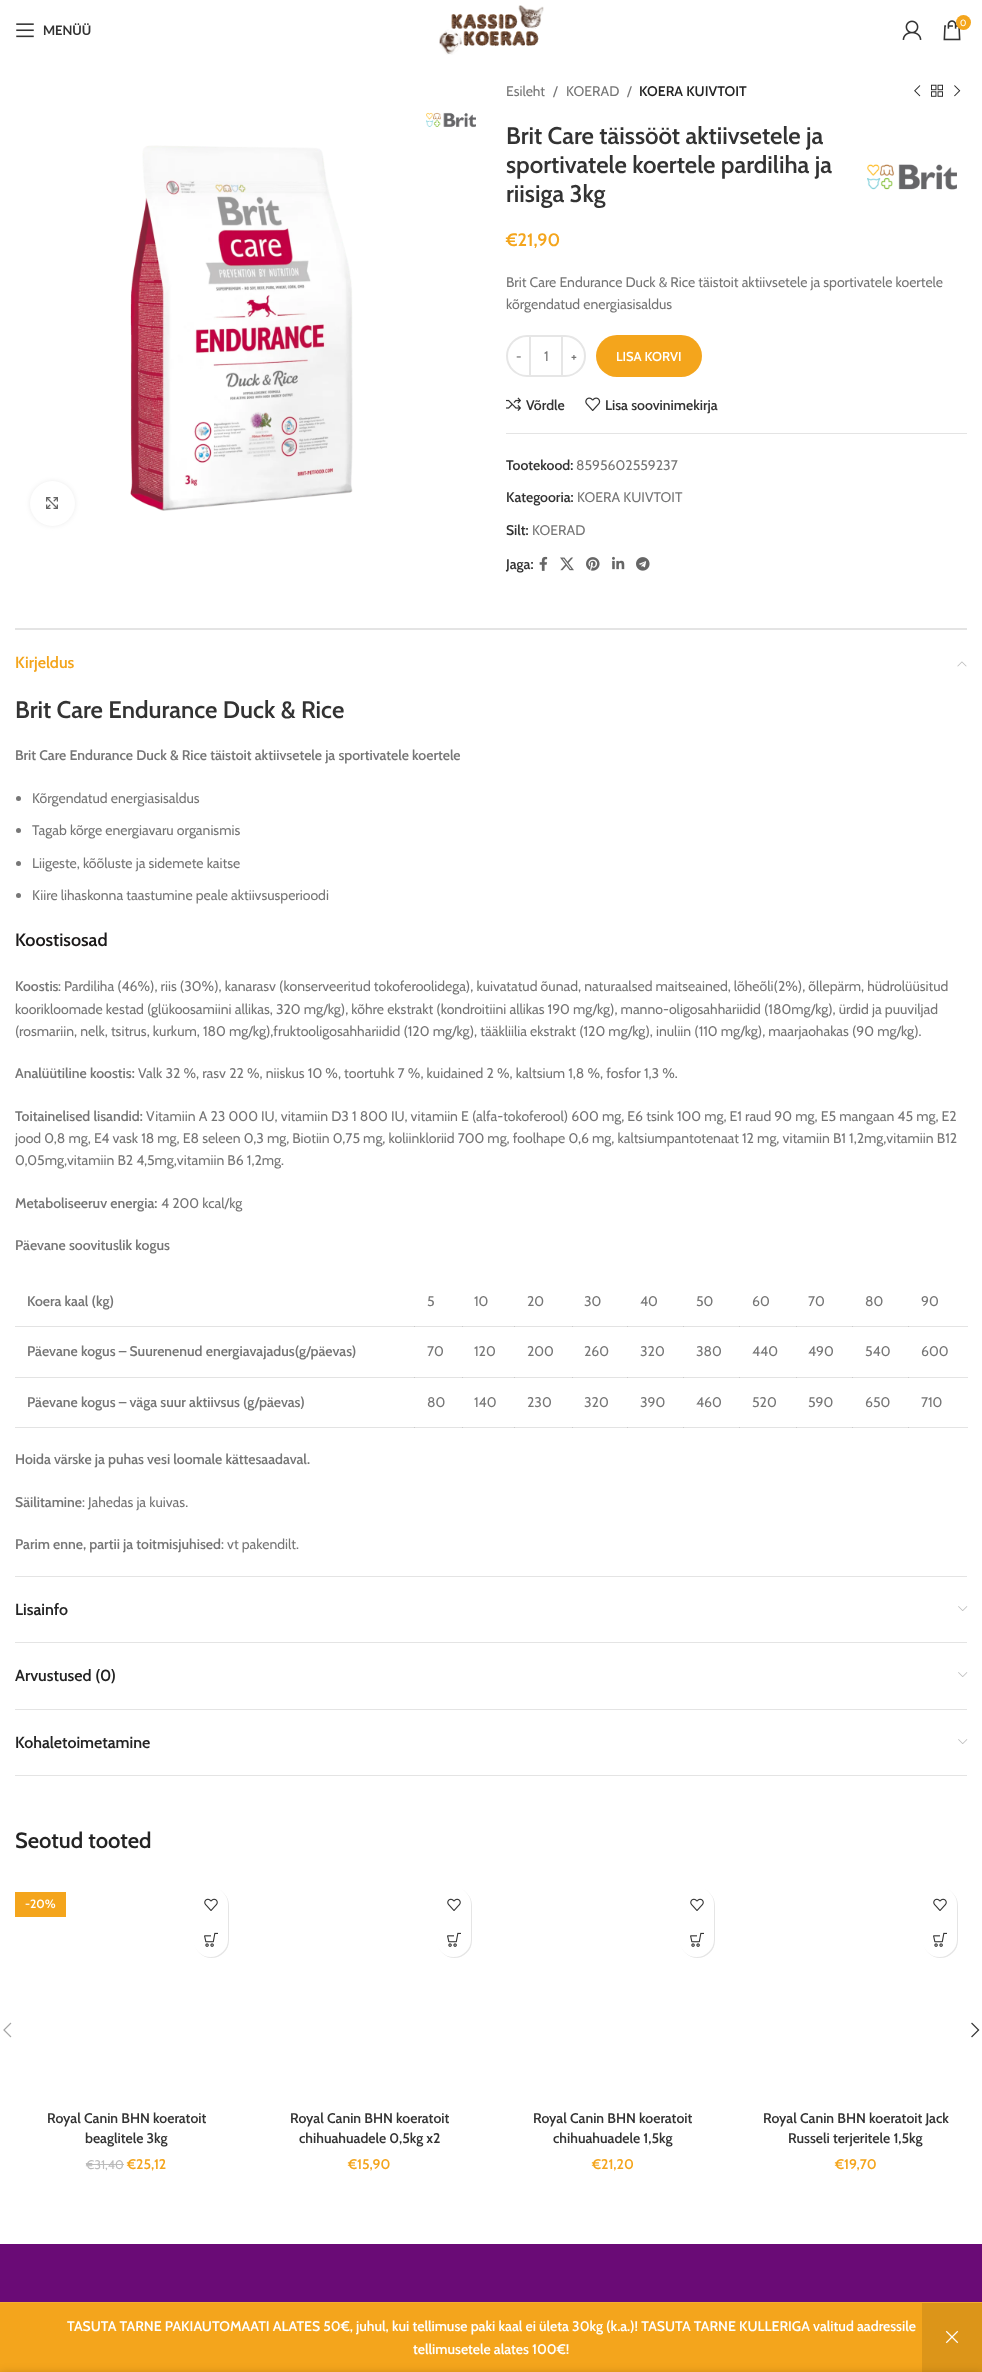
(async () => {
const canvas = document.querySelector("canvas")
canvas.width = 982
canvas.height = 2372
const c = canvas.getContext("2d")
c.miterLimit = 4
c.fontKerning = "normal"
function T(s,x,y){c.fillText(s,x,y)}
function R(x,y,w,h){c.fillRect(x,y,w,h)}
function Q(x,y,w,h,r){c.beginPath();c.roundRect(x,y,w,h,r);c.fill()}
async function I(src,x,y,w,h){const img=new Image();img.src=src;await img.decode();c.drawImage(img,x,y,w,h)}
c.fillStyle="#fff"
R(0,0,982,2372)
c.fillStyle="#e3e3e3"
R(15,1326,894,1)
c.fillStyle="#cacaca"
R(414,1326,1,1)
R(462,1326,1,1)
R(514,1326,1,1)
R(572,1326,1,1)
R(627,1326,1,1)
R(683,1326,1,1)
R(739,1326,1,1)
R(796,1326,1,1)
R(852,1326,1,1)
c.fillStyle="#e3e3e3"
R(15,1377,894,1)
c.fillStyle="#cacaca"
R(414,1377,1,1)
R(462,1377,1,1)
R(514,1377,1,1)
R(572,1377,1,1)
R(627,1377,1,1)
R(683,1377,1,1)
R(739,1377,1,1)
R(796,1377,1,1)
R(852,1377,1,1)
c.fillStyle="#e3e3e3"
R(15,1427,894,1)
c.fillStyle="#cacaca"
R(414,1427,1,1)
R(462,1427,1,1)
R(514,1427,1,1)
R(572,1427,1,1)
R(627,1427,1,1)
R(683,1427,1,1)
R(739,1427,1,1)
R(796,1427,1,1)
R(852,1427,1,1)
await I("1.png",16,23,18,15)
c.font="bold 13px Lato"
c.fillStyle="#333"
T("MENÜÜ",43,35)
await I("2.png",439,5,105,50)
await I("3.png",902,20,20,20)
await I("4.png",943,20,18,21)
c.fillStyle="#f4a51c"
c.beginPath()
c.arc(963.5,22.5,7.5,0,7)
c.fill()
c.font="9px Cabin"
c.fillStyle="#fff"
T("0",960,26)
await I("5.png",426,112,50,16)
c.fillStyle="#00000014"
c.filter="blur(2.5px)"
c.beginPath()
c.roundRect(30,481,45,45,22.5)
c.fill()
c.filter="none"
c.fillStyle="#fff"
c.beginPath()
c.arc(52.5,503.5,22.5,0,7)
c.fill()
await I("6.png",46,497,12,12)
await I("7.png",130,145,223,366)
c.font="14px Cabin"
c.fillStyle="#767676"
T("Esileht",506,96)
T("/",553,96)
T("KOERAD",566,96)
T("/",627,96)
c.font="600 14px Cabin"
c.fillStyle="#242424"
T("KOERA KUIVTOIT",639,96)
await I("8.png",914,85,7,12)
await I("9.png",931,84,12,13)
await I("10.png",954,85,7,12)
c.font="600 24px Cabin"
c.fillStyle="#333"
T("Brit Care täissööt aktiivsetele ja",506,144)
T("sportivatele koertele pardiliha ja",506,173)
T("riisiga 3kg",506,202)
await I("11.png",867,164,90,26)
c.font="600 18px Cabin"
c.fillStyle="#f4a51c"
T("€21,90",506,246)
c.font="14px Cabin"
c.fillStyle="#767676"
T("Brit Care Endurance Duck & Rice täistoit aktiivsetele ja sportivatele koertele",506,287)
T("kõrgendatud energiasisaldus",506,309)
c.beginPath()
c.roundRect(507,336,23,40,[20,0,0,20])
c.strokeStyle="#e6e6e6"
c.lineWidth=2
c.stroke()
c.font="600 13px Cabin"
T("-",516,361)
c.fillStyle="#e6e6e6"
R(531,335,30,2)
R(531,375,30,2)
c.font="14px Cabin"
c.fillStyle="#767676"
T("1",544,361)
c.beginPath()
c.roundRect(562,336,23,40,[0,20,20,0])
c.stroke()
c.font="600 13px Cabin"
T("+",571,361)
c.fillStyle="#f4a51c"
Q(596,335,106,42,21)
c.fillStyle="#fff"
T("LISA KORVI",616,361)
await I("12.png",506,397,15,14)
c.font="600 14px Cabin"
c.fillStyle="#333"
T("Võrdle",526,410)
await I("13.png",585,397,16,14)
T("Lisa soovinimekirja",605,410)
c.fillStyle="#e4e4e4"
R(506,433,461,1)
c.fillStyle="#333"
T("Tootekood:",506,470)
c.font="14px Cabin"
c.fillStyle="#767676"
T("8595602559237",576,470)
c.font="600 14px Cabin"
c.fillStyle="#333"
T("Kategooria:",506,502)
c.font="14px Cabin"
c.fillStyle="#767676"
T("KOERA KUIVTOIT",577,502)
c.font="600 14px Cabin"
c.fillStyle="#333"
T("Silt:",506,535)
c.font="14px Cabin"
c.fillStyle="#767676"
T("KOERAD",532,535)
c.font="600 14px Cabin"
c.fillStyle="#333"
T("Jaga:",506,569)
await I("14.png",539,556,9,15)
await I("15.png",560,557,14,14)
await I("16.png",586,557,14,14)
await I("17.png",612,556,13,14)
await I("18.png",636,557,14,14)
c.fillStyle="#e4e4e4"
R(15,628,952,2)
R(15,1576,952,1)
c.font="600 16px Cabin"
c.fillStyle="#f4a51c"
T("Kirjeldus",15,668)
await I("19.png",957,661,10,6)
c.font="600 24px Cabin"
c.fillStyle="#333"
T("Brit Care Endurance Duck & Rice",15,718)
c.font="600 14px Cabin"
c.fillStyle="#767676"
T("Brit Care Endurance Duck & Rice täistoit aktiivsetele ja sportivatele koertele",15,760)
c.fillStyle="#777"
c.beginPath()
c.arc(18.5,798.5,2.5,0,7)
c.fill()
c.font="14px Cabin"
c.fillStyle="#767676"
T("Kõrgendatud energiasisaldus",32,803)
c.fillStyle="#777"
c.beginPath()
c.arc(18.5,830.5,2.5,0,7)
c.fill()
c.fillStyle="#767676"
T("Tagab kõrge energiavaru organismis",32,835)
c.fillStyle="#777"
c.beginPath()
c.arc(18.5,863.5,2.5,0,7)
c.fill()
c.fillStyle="#767676"
T("Liigeste, kõõluste ja sidemete kaitse",32,868)
c.fillStyle="#777"
c.beginPath()
c.arc(18.5,895.5,2.5,0,7)
c.fill()
c.fillStyle="#767676"
T("Kiire lihaskonna taastumine peale aktiivsusperioodi",32,900)
c.font="600 18px Cabin"
c.fillStyle="#1b1919"
T("Koostisosad",15,946)
c.font="600 14px Cabin"
c.fillStyle="#767676"
T("Koostis",15,991)
c.font="14px Cabin"
T(": Pardiliha (46%), riis (30%), kanarasv (konserveeritud tokoferoolidega), kuivatatud õunad, naturaalsed maitseained, lõheõli(2%), õllepärm, hüdrolüüsitud",58,991)
T("koorikloomade kestad (glükoosamiini allikas, 320 mg/kg), kõhre ekstrakt (kondroitiini allikas 190 mg/kg), manno-oligosahhariidid (180mg/kg), ürdid ja puuviljad",15,1014)
T("(rosmariin, nelk, tsitrus, kurkum, 180 mg/kg),fruktooligosahhariidid (120 mg/kg), tääkliilia ekstrakt (120 mg/kg), inuliin (110 mg/kg), maarjaohakas (90 mg/kg).",15,1036)
c.font="600 14px Cabin"
T("Analüütiline koostis:",15,1078)
c.font="14px Cabin"
T("Valk 32 %, rasv 22 %, niiskus 10 %, toortuhk 7 %, kuidained 2 %, kaltsium 1,8 %, fosfor 1,3 %.",138,1078)
c.font="600 14px Cabin"
T("Toitainelised lisandid:",15,1121)
c.font="14px Cabin"
T("Vitamiin A 23 000 IU, vitamiin D3 1 800 IU, vitamiin E (alfa-tokoferool) 600 mg, E6 tsink 100 mg, E1 raud 90 mg, E5 mangaan 45 mg, E2",146,1121)
T("jood 0,8 mg, E4 vask 18 mg, E8 seleen 0,3 mg, Biotiin 0,75 mg, koliinkloriid 700 mg, foolhape 0,6 mg, kaltsiumpantotenaat 12 mg, vitamiin B1 1,2mg,vitamiin B12",15,1143)
T("0,05mg,vitamiin B2 4,5mg,vitamiin B6 1,2mg.",15,1165)
c.font="600 14px Cabin"
T("Metaboliseeruv energia:",15,1208)
c.font="14px Cabin"
T("4 200 kcal/kg",161,1208)
c.font="600 14px Cabin"
T("Päevane soovituslik kogus",15,1250)
T("Koera kaal (kg)",27,1306)
c.font="14px Cabin"
T("5",427,1306)
T("10",474,1306)
T("20",527,1306)
T("30",584,1306)
T("40",640,1306)
T("50",696,1306)
T("60",752,1306)
T("70",808,1306)
T("80",865,1306)
c.fillStyle="#e4e4e4"
R(908,1326,60,1)
c.fillStyle="#cbcbcb"
R(908,1326,1,1)
c.fillStyle="#767676"
T("90",921,1306)
c.font="600 14px Cabin"
T("Päevane kogus – Suurenenud energiavajadus(g/päevas)",27,1356)
c.font="14px Cabin"
T("70",427,1356)
T("120",474,1356)
T("200",527,1356)
T("260",584,1356)
T("320",640,1356)
T("380",696,1356)
T("440",752,1356)
T("490",808,1356)
T("540",865,1356)
c.fillStyle="#e4e4e4"
R(908,1377,60,1)
c.fillStyle="#cbcbcb"
R(908,1377,1,1)
c.fillStyle="#767676"
T("600",921,1356)
c.font="600 14px Cabin"
T("Päevane kogus – väga suur aktiivsus (g/päevas)",27,1407)
c.font="14px Cabin"
T("80",427,1407)
T("140",474,1407)
T("230",527,1407)
T("320",584,1407)
T("390",640,1407)
T("460",696,1407)
T("520",752,1407)
T("590",808,1407)
T("650",865,1407)
c.fillStyle="#e4e4e4"
R(908,1427,60,1)
c.fillStyle="#cbcbcb"
R(908,1427,1,1)
c.fillStyle="#767676"
T("710",921,1407)
c.font="600 14px Cabin"
T("Hoida värske ja puhas vesi loomale kättesaadaval.",15,1464)
T("Säilitamine",15,1507)
c.font="14px Cabin"
T(": Jahedas ja kuivas.",82,1507)
c.font="600 14px Cabin"
T("Parim enne, partii ja toitmisjuhised",15,1549)
c.font="14px Cabin"
T(": vt pakendilt.",221,1549)
c.fillStyle="#e4e4e4"
R(15,1642,952,1)
c.font="600 16px Cabin"
c.fillStyle="#242424"
T("Lisainfo",15,1615)
await I("20.png",958,1606,10,5)
c.fillStyle="#e4e4e4"
R(15,1709,952,1)
c.fillStyle="#242424"
T("Arvustused (0)",15,1681)
await I("20.png",958,1672,10,5)
c.fillStyle="#e4e4e4"
R(15,1775,952,1)
c.fillStyle="#242424"
T("Kohaletoimetamine",15,1748)
await I("20.png",958,1739,10,5)
c.font="600 22px Cabin"
T("Seotud tooted",15,1848)
c.fillStyle="#f4a51c"
R(15,1892,51,25)
c.font="600 12px Cabin"
c.fillStyle="#fff"
T("-20%",25,1908)
c.fillStyle="#0000001a"
c.filter="blur(0.5px)"
c.beginPath()
c.roundRect(194,1888,35,70,17.5)
c.fill()
c.filter="none"
c.fillStyle="#fff"
Q(193,1887,35,70,17.5)
await I("21.png",204,1898,14,13)
await I("22.png",204,1932,14,15)
c.font="600 14px Cabin"
c.fillStyle="#333"
T("Royal Canin BHN koeratoit",47,2123)
T("beaglitele 3kg",85,2143)
c.font="12.5px Cabin"
c.fillStyle="#bbb"
T("€31,40",86,2169)
R(86,2164,38,1)
c.font="600 14px Cabin"
c.fillStyle="#f4a51c"
T("€25,12",127,2169)
c.fillStyle="#0000001a"
c.filter="blur(0.5px)"
c.beginPath()
c.roundRect(437,1888,35,70,17.5)
c.fill()
c.filter="none"
c.fillStyle="#fff"
Q(436,1887,35,70,17.5)
await I("21.png",447,1898,14,13)
await I("22.png",447,1932,14,15)
c.fillStyle="#333"
T("Royal Canin BHN koeratoit",290,2123)
T("chihuahuadele 0,5kg x2",299,2143)
c.fillStyle="#f4a51c"
T("€15,90",348,2169)
c.fillStyle="#0000001a"
c.filter="blur(0.5px)"
c.beginPath()
c.roundRect(680,1888,35,70,17.5)
c.fill()
c.filter="none"
c.fillStyle="#fff"
Q(679,1887,35,70,17.5)
await I("21.png",690,1898,14,13)
await I("22.png",690,1932,14,15)
c.fillStyle="#333"
T("Royal Canin BHN koeratoit",533,2123)
T("chihuahuadele 1,5kg",553,2143)
c.fillStyle="#f4a51c"
T("€21,20",592,2169)
c.fillStyle="#0000001a"
c.filter="blur(0.5px)"
c.beginPath()
c.roundRect(923,1888,35,70,17.5)
c.fill()
c.filter="none"
c.fillStyle="#fff"
Q(922,1887,35,70,17.5)
await I("21.png",933,1898,14,13)
await I("22.png",933,1932,14,15)
c.fillStyle="#333"
T("Royal Canin BHN koeratoit Jack",763,2123)
T("Russeli terjeritele 1,5kg",788,2143)
c.fillStyle="#f4a51c"
T("€19,70",835,2169)
await I("23.png",3,2022,9,16)
await I("24.png",971,2022,9,16)
c.fillStyle="#6a0b76"
R(0,2244,982,58)
c.fillStyle="#f4a51c"
R(0,2303,922,69)
c.fillStyle="#f5ae33"
R(0,2302,982,1)
c.fillStyle="#fff"
T("TASUTA TARNE PAKIAUTOMAATI ALATES 50€, juhul, kui tellimuse paki kaal ei ületa 30kg (k.a.)! TASUTA TARNE KULLERIGA valitud aadressile",67,2331)
c.fillStyle="#dc9519"
R(922,2303,60,69)
await I("25.png",945,2330,14,14)
c.fillStyle="#fff"
T("tellimusetele alates 100€!",413,2354)
c.fillStyle="#00000024"
c.filter="blur(4.5px)"
c.beginPath()
c.rect(0,2372,982,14)
c.fill()
c.filter="none"
})()
